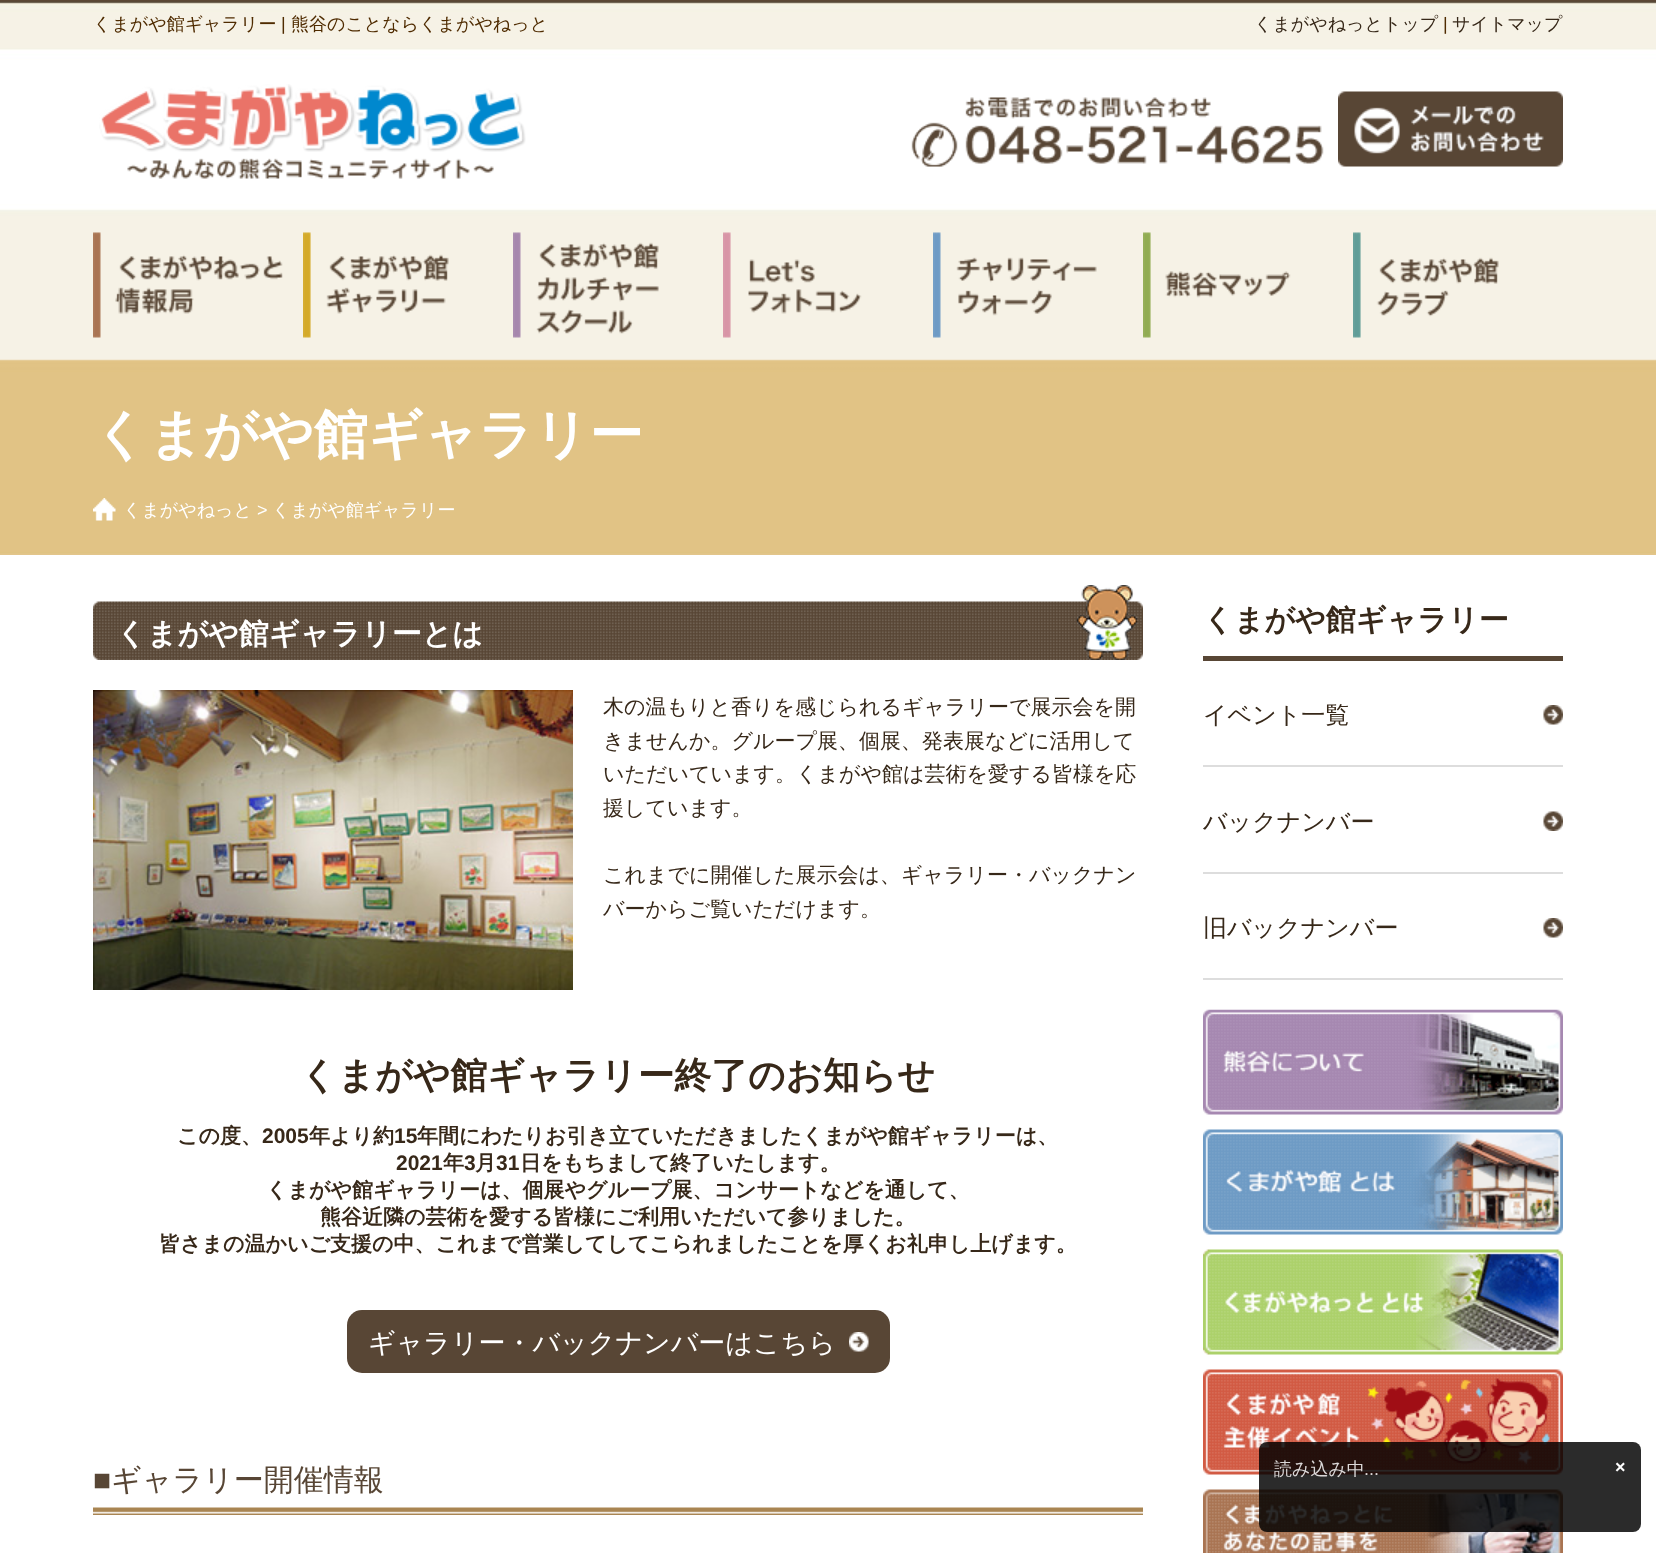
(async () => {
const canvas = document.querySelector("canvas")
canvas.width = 1656
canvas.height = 1553
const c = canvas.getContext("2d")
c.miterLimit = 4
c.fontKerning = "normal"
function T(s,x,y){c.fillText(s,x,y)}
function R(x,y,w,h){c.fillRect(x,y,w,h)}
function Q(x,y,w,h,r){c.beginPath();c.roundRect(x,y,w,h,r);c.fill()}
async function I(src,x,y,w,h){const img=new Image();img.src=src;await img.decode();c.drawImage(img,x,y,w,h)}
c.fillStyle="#fff"
R(0,0,1656,1553)
await I("1.png",0,0,1656,555)
c.font="500 18px WenQuanYi Zen Hei"
c.fillStyle="#4f2b00"
T("くまがや館ギャラリー",93,30)
c.font="18px Liberation Sans"
T("|",281,30)
c.font="500 18px WenQuanYi Zen Hei"
T("熊谷のことならくまがやねっと",291,30)
c.fillStyle="#372819"
T("くまがやねっとトップ",1254,30)
c.font="18px Liberation Sans"
c.fillStyle="#4f2b00"
T("|",1443,30)
c.font="500 18px WenQuanYi Zen Hei"
c.fillStyle="#372819"
T("サイトマップ",1452,30)
await I("2.png",99,84,427,95)
await I("3.png",911,97,413,70)
await I("4.png",1338,91,225,76)
await I("5.png",93,232,190,106)
await I("6.png",303,232,146,106)
await I("7.png",513,232,146,106)
await I("8.png",723,232,139,106)
await I("9.png",933,232,164,106)
await I("10.png",1143,232,148,106)
await I("11.png",1353,232,146,106)
c.font="bold 54px WenQuanYi Zen Hei"
c.fillStyle="#fff"
T("くまがや館ギャラリー",93,453)
await I("12.png",93,498,23,23)
c.font="500 18px WenQuanYi Zen Hei"
T("くまがやねっと",123,516)
c.font="18px Liberation Sans"
T(">",257,516)
c.font="500 18px WenQuanYi Zen Hei"
T("くまがや館ギャラリー",272,516)
await I("13.png",93,585,1050,75)
c.font="bold 30px WenQuanYi Zen Hei"
T("くまがや館ギャラリーとは",116,644)
await I("14.png",93,690,480,300)
c.font="500 21px WenQuanYi Zen Hei"
c.fillStyle="#372819"
T("木の温もりと香りを感じられるギャラリーで展示会を開",603,714)
T("きませんか。グループ展、個展、発表展などに活用して",603,748)
T("いただいています。くまがや館は芸術を愛する皆様を応",603,781)
T("援しています。",603,815)
T("これまでに開催した展示会は、ギャラリー・バックナン",603,882)
T("バーからご覧いただけます。",603,916)
c.font="bold 36.75px WenQuanYi Zen Hei"
T("くまがや館ギャラリー終了のお知らせ",300,1088)
c.font="bold 21px WenQuanYi Zen Hei"
T("この度、",177,1143)
c.font="bold 21px Liberation Sans"
T("2005",262,1143)
c.font="bold 21px WenQuanYi Zen Hei"
T("年より約",309,1143)
c.font="bold 21px Liberation Sans"
T("15",394,1143)
c.font="bold 21px WenQuanYi Zen Hei"
T("年間にわたりお引き立ていただきましたくまがや館ギャラリーは、",417,1143)
c.font="bold 21px Liberation Sans"
T("2021",396,1170)
c.font="bold 21px WenQuanYi Zen Hei"
T("年",443,1170)
c.font="bold 21px Liberation Sans"
T("3",464,1170)
c.font="bold 21px WenQuanYi Zen Hei"
T("月",475,1170)
c.font="bold 21px Liberation Sans"
T("31",496,1170)
c.font="bold 21px WenQuanYi Zen Hei"
T("日をもちまして終了いたします。",520,1170)
T("くまがや館ギャラリーは、個展やグループ展、コンサートなどを通して、",266,1197)
T("熊谷近隣の芸術を愛する皆様にご利用いただいて参りました。",320,1224)
T("皆さまの温かいご支援の中、これまで営業してしてこられましたことを厚くお礼申し上げます。",159,1251)
c.fillStyle="#584635"
Q(347,1310,543,63,15)
c.font="500 27px WenQuanYi Zen Hei"
c.fillStyle="#fff"
T("ギャラリー・バックナンバーはこちら",368,1352)
await I("15.png",849,1332,20,20)
await I("16.png",93,1507,1050,8)
c.font="30px Liberation Sans"
c.fillStyle="#584635"
T("■",93,1490)
c.font="500 30px WenQuanYi Zen Hei"
T("ギャラリー開催情報",111,1490)
R(1203,656,360,5)
c.font="bold 30px WenQuanYi Zen Hei"
c.fillStyle="#372819"
T("くまがや館ギャラリー",1203,630)
c.fillStyle="#ddd"
R(1203,765,360,2)
await I("17.png",1543,705,20,20)
c.font="500 24px WenQuanYi Zen Hei"
c.fillStyle="#372819"
T("イベント一覧",1203,723)
c.fillStyle="#ddd"
R(1203,872,360,2)
await I("18.png",1543,811,20,20)
c.fillStyle="#372819"
T("バックナンバー",1203,830)
c.fillStyle="#ddd"
R(1203,978,360,2)
await I("17.png",1543,918,20,20)
c.fillStyle="#372819"
T("旧バックナンバー",1203,936)
await I("19.png",1203,1009,360,106)
await I("20.png",1203,1129,360,106)
await I("21.png",1203,1249,360,106)
await I("22.png",1203,1369,360,106)
await I("23.png",1203,1489,360,64)
c.fillStyle="#000000d4"
Q(1259,1442,382,90,8)
c.font="500 18px WenQuanYi Zen Hei"
c.fillStyle="#dbd8d8"
T("読み込み中",1274,1475)
c.font="18px Liberation Sans"
T("...",1364,1475)
c.font="bold 18px Liberation Sans"
c.fillStyle="#fff"
T("×",1615,1473)
})()
